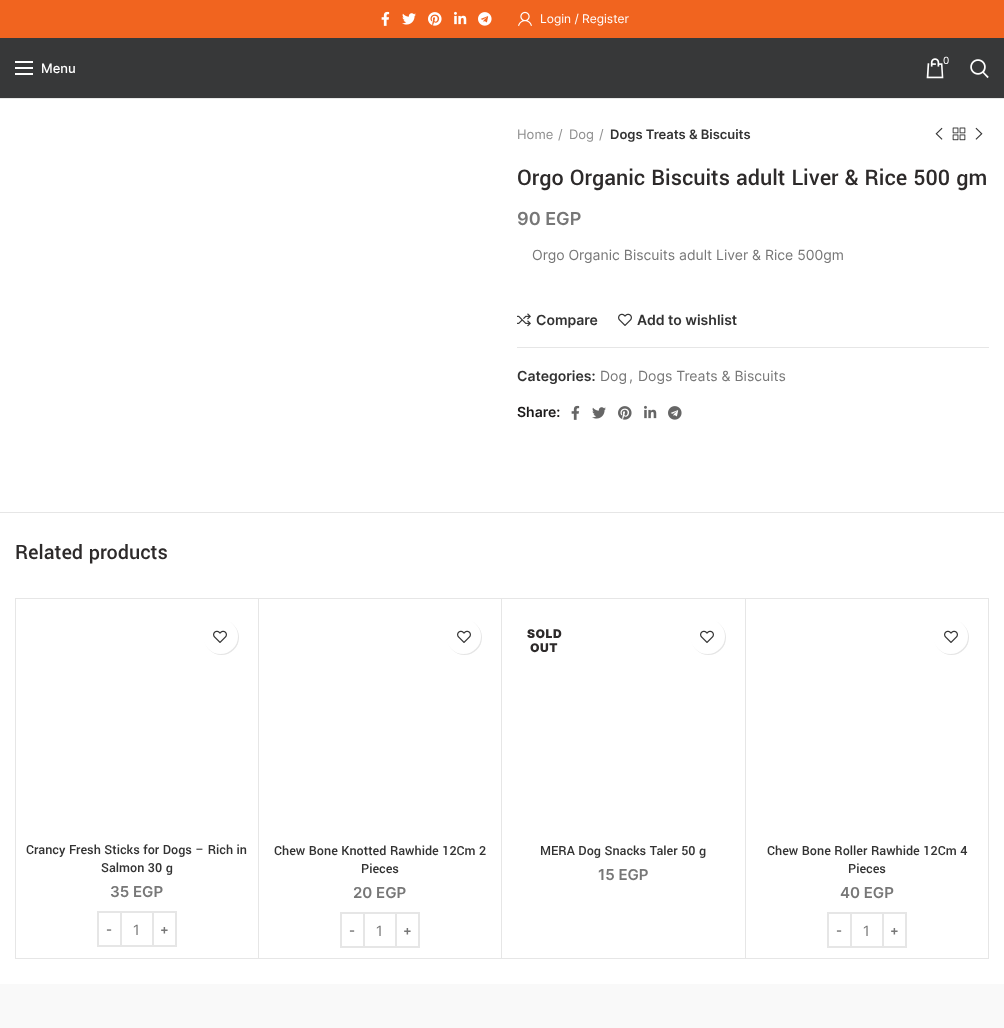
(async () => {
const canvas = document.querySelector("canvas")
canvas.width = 1004
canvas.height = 1028
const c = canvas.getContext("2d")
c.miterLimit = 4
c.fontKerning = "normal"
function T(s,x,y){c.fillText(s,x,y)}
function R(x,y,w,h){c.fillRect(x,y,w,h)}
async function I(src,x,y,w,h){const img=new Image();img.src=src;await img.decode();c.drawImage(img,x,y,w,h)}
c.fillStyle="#fff"
R(0,0,1004,1028)
c.fillStyle="#f1641f"
R(0,0,1004,38)
await I("1.png",381,11,9,15)
await I("2.png",402,13,14,12)
await I("3.png",428,12,14,14)
await I("4.png",454,11,13,14)
await I("5.png",478,12,14,14)
await I("6.png",518,11,14,15)
c.font="12px Inter"
c.fillStyle="#fff"
T("Login / Register",540,23)
c.fillStyle="#373839"
R(0,38,1004,60)
c.fillStyle="#e8e8e8"
R(0,98,1004,1)
await I("7.png",926,58,18,21)
c.font="10px Inter"
c.fillStyle="#fff"
T("0",943,64)
await I("8.png",970,59,19,20)
R(15,67,18,2)
R(15,61,18,2)
R(15,73,18,2)
c.font="500 13px Inter"
T("Menu",41,73)
c.font="13px Inter"
c.fillStyle="#8e8e8e"
T("Home",517,139)
T("/",558,139)
T("Dog",569,139)
T("/",599,139)
c.font="600 13px Inter"
c.fillStyle="#333"
T("Dogs Treats & Biscuits",610,139)
await I("9.png",935,127,8,13)
await I("10.png",952,127,14,14)
await I("11.png",975,127,8,13)
c.font="500 24px Yantramanav"
c.fillStyle="#2d2a2a"
T("Orgo Organic Biscuits adult Liver & Rice 500 gm",517,185)
c.font="600 18px Inter"
c.fillStyle="#777"
T("90 EGP",517,225)
c.font="14px Inter"
T("Orgo Organic Biscuits adult Liver & Rice 500gm",532,260)
await I("12.png",517,313,14,14)
c.font="600 14px Inter"
c.fillStyle="#333"
T("Compare",536,325)
await I("13.png",618,313,14,13)
T("Add to wishlist",637,325)
c.fillStyle="#e6e6e6"
R(517,347,472,1)
c.fillStyle="#333"
T("Categories:",517,381)
c.font="14px Inter"
c.fillStyle="#777"
T("Dog",600,381)
T(",",629,381)
T("Dogs Treats & Biscuits",638,381)
c.font="600 14px Inter"
c.fillStyle="#1b1919"
T("Share:",517,417)
await I("14.png",571,405,9,15)
await I("15.png",592,407,14,12)
await I("16.png",618,406,14,14)
await I("17.png",644,405,13,14)
await I("18.png",668,406,14,14)
c.fillStyle="#e6e6e6"
R(0,512,1004,1)
c.font="500 22px Yantramanav"
c.fillStyle="#2d2a2a"
T("Related products",15,559)
c.fillStyle="#e6e6e6"
R(15,598,974,1)
R(15,958,974,1)
R(258,599,1,359)
R(15,599,1,359)
c.fillStyle="#0000001a"
c.filter="blur(0.5px)"
c.beginPath()
c.roundRect(204,620,35,35,17.5)
c.fill()
c.filter="none"
c.fillStyle="#fff"
c.beginPath()
c.arc(220.5,636.5,17.5,0,7)
c.fill()
await I("13.png",213,630,14,13)
c.font="500 14px Yantramanav"
c.fillStyle="#333"
T("Crancy Fresh Sticks for Dogs – Rich in",26,854)
T("Salmon 30 g",101,872)
c.font="600 15px Inter"
c.fillStyle="#777"
T("35 EGP",110,897)
c.strokeStyle="#e6e6e6"
c.lineWidth=2
c.strokeRect(98,912,23,34)
c.font="600 13px Inter"
T("-",106,934)
c.fillStyle="#e6e6e6"
R(122,911,30,2)
R(122,945,30,2)
c.font="14px Inter"
c.fillStyle="#777"
T("1",133,935)
c.strokeRect(153,912,23,34)
c.font="600 13px Inter"
T("+",160,934)
c.fillStyle="#e6e6e6"
R(501,599,1,359)
c.fillStyle="#0000001a"
c.filter="blur(0.5px)"
c.beginPath()
c.roundRect(447,620,35,35,17.5)
c.fill()
c.filter="none"
c.fillStyle="#fff"
c.beginPath()
c.arc(463.5,636.5,17.5,0,7)
c.fill()
await I("13.png",457,630,14,13)
c.font="500 14px Yantramanav"
c.fillStyle="#333"
T("Chew Bone Knotted Rawhide 12Cm 2",274,855)
T("Pieces",361,873)
c.font="600 15px Inter"
c.fillStyle="#777"
T("20 EGP",353,898)
c.strokeRect(341,913,23,34)
c.font="600 13px Inter"
T("-",349,935)
c.fillStyle="#e6e6e6"
R(365,912,30,2)
R(365,946,30,2)
c.font="14px Inter"
c.fillStyle="#777"
T("1",376,936)
c.strokeRect(396,913,23,34)
c.font="600 13px Inter"
T("+",403,935)
c.fillStyle="#e6e6e6"
R(745,599,1,359)
c.letterSpacing="0.5px"
c.font="900 12px Inter"
c.fillStyle="#2d2a2a"
T("SOLD",527,638)
T("OUT",530,652)
c.fillStyle="#0000001a"
c.filter="blur(0.5px)"
c.beginPath()
c.roundRect(691,620,35,35,17.5)
c.fill()
c.filter="none"
c.fillStyle="#fff"
c.beginPath()
c.arc(707.5,636.5,17.5,0,7)
c.fill()
await I("13.png",700,630,14,13)
c.letterSpacing="0px"
c.font="500 14px Yantramanav"
c.fillStyle="#333"
T("MERA Dog Snacks Taler 50 g",540,855)
c.font="600 15px Inter"
c.fillStyle="#777"
T("15 EGP",598,880)
c.fillStyle="#e6e6e6"
R(988,599,1,359)
c.fillStyle="#0000001a"
c.filter="blur(0.5px)"
c.beginPath()
c.roundRect(934,620,35,35,17.5)
c.fill()
c.filter="none"
c.fillStyle="#fff"
c.beginPath()
c.arc(950.5,636.5,17.5,0,7)
c.fill()
await I("13.png",944,630,14,13)
c.font="500 14px Yantramanav"
c.fillStyle="#333"
T("Chew Bone Roller Rawhide 12Cm 4",767,855)
T("Pieces",848,873)
c.font="600 15px Inter"
c.fillStyle="#777"
T("40 EGP",840,898)
c.strokeRect(828,913,23,34)
c.font="600 13px Inter"
T("-",836,935)
c.fillStyle="#e6e6e6"
R(852,912,30,2)
R(852,946,30,2)
c.font="14px Inter"
c.fillStyle="#777"
T("1",863,936)
c.strokeRect(883,913,23,34)
c.font="600 13px Inter"
T("+",890,935)
c.fillStyle="#f9f9f9"
R(0,984,1004,44)
})()
